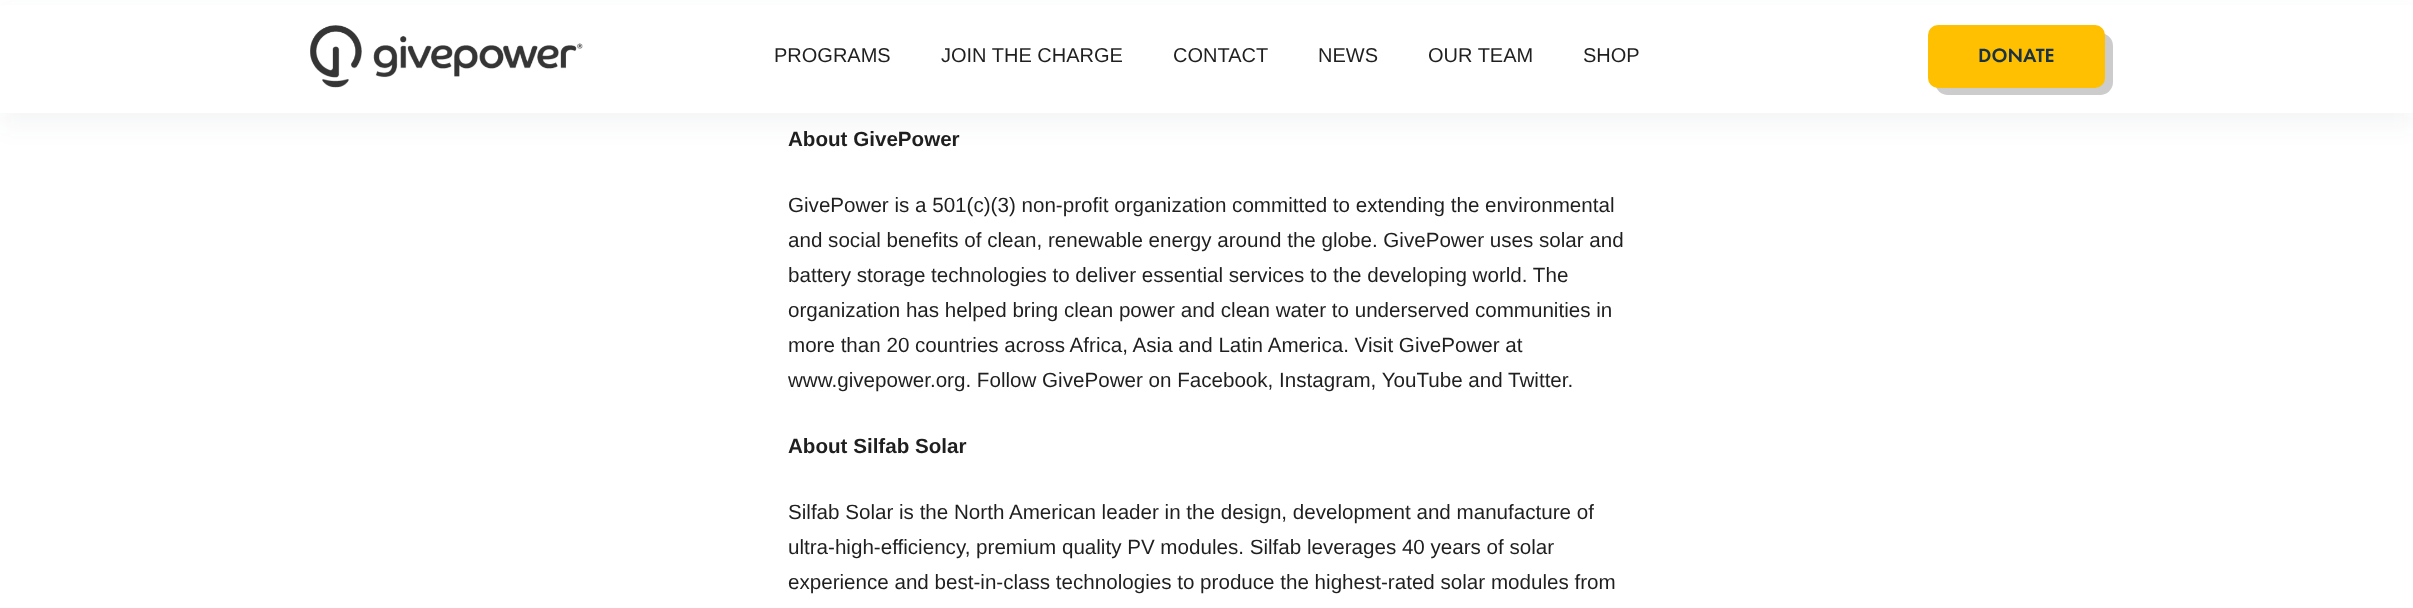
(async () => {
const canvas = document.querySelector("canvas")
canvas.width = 2413
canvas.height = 608
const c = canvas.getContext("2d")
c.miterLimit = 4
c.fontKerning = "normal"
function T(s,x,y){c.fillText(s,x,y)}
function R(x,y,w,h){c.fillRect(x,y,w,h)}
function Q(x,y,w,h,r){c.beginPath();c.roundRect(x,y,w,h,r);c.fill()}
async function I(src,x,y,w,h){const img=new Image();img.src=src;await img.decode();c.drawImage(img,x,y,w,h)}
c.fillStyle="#fff"
R(0,0,2413,608)
c.fillStyle="#2b3d4f0d"
c.filter="blur(12.5px)"
c.beginPath()
c.rect(0,13,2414,112)
c.fill()
c.filter="none"
c.fillStyle="#fff"
R(0,5,2413,108)
await I("1.png",310,25,273,63)
c.font="20px Liberation Sans"
c.fillStyle="#1f1f1f"
T("PROGRAMS",774,62)
T("JOIN THE CHARGE",941,62)
T("CONTACT",1173,62)
T("NEWS",1318,62)
T("OUR TEAM",1428,62)
T("SHOP",1583,62)
c.fillStyle="#ccc"
Q(1935,33,178,62,13)
c.fillStyle="#fec000"
Q(1928,25,177,63,10)
c.font="500 20px Futura PT"
c.fillStyle="#1a3242"
T("DONATE",1978,62)
c.font="bold 20.6px Liberation Sans"
c.fillStyle="#1f1f1f"
T("About GivePower",788,146)
c.font="20.6px Liberation Sans"
T("GivePower is a 501(c)(3) non-profit organization committed to extending the environmental",788,212)
T("and social benefits of clean, renewable energy around the globe. GivePower uses solar and",788,247)
T("battery storage technologies to deliver essential services to the developing world. The",788,282)
T("organization has helped bring clean power and clean water to underserved communities in",788,317)
T("more than 20 countries across Africa, Asia and Latin America. Visit GivePower at",788,352)
T("www.givepower.org. Follow GivePower on Facebook, Instagram, YouTube and Twitter.",788,387)
c.font="bold 20.6px Liberation Sans"
T("About Silfab Solar",788,453)
c.font="20.6px Liberation Sans"
T("Silfab Solar is the North American leader in the design, development and manufacture of",788,519)
T("ultra-high-efficiency, premium quality PV modules. Silfab leverages 40 years of solar",788,554)
T("experience and best-in-class technologies to produce the highest-rated solar modules from",788,589)
})()
